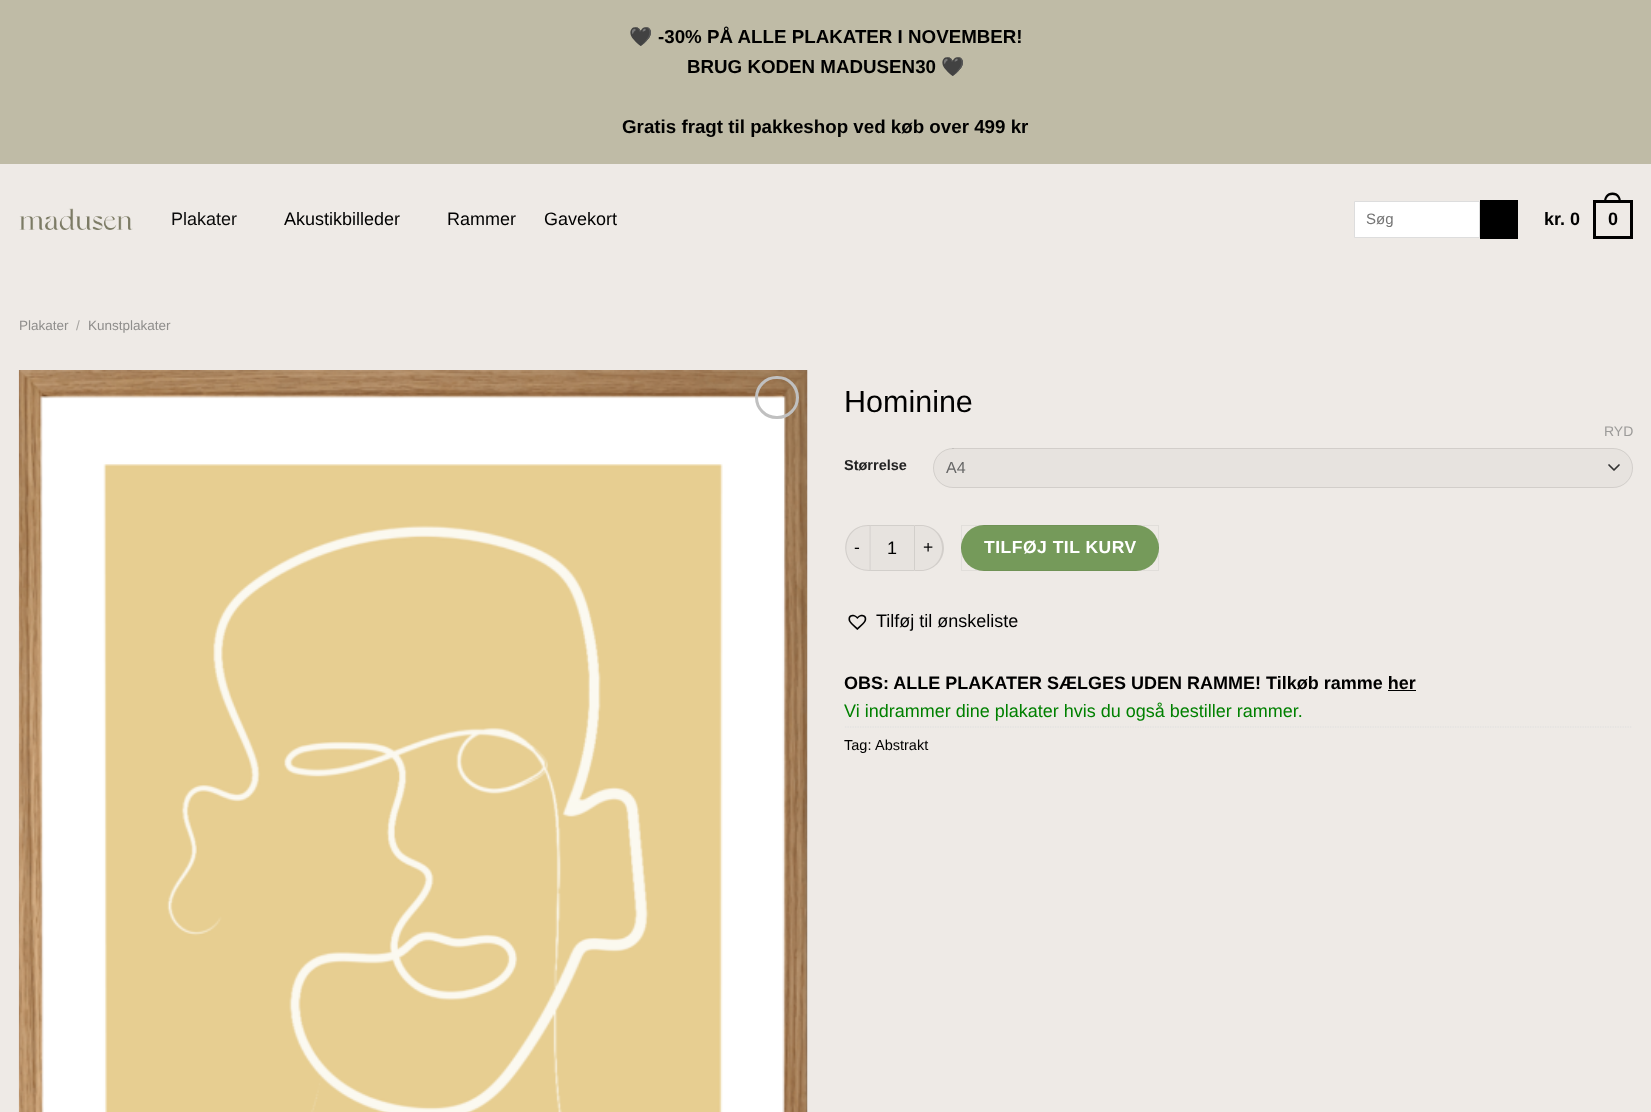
(async () => {
const canvas = document.querySelector("canvas")
canvas.width = 1651
canvas.height = 1112
const c = canvas.getContext("2d")
c.miterLimit = 4
c.fontKerning = "normal"
function T(s,x,y){c.fillText(s,x,y)}
function R(x,y,w,h){c.fillRect(x,y,w,h)}
function Q(x,y,w,h,r){c.beginPath();c.roundRect(x,y,w,h,r);c.fill()}
async function I(src,x,y,w,h){const img=new Image();img.src=src;await img.decode();c.drawImage(img,x,y,w,h)}
let path
c.fillStyle="#eeeae6"
R(0,0,1651,1112)
c.fillStyle="#bfbba6"
R(0,0,1651,164)
c.font="bold 18.75px Noto Color Emoji"
c.fillStyle="#000"
T("🖤",629,43)
c.font="bold 18.75px Liberation Sans"
T("-30% PÅ ALLE PLAKATER I NOVEMBER!",658,43)
T("BRUG KODEN MADUSEN30",687,73)
c.font="bold 18.75px Noto Color Emoji"
T("🖤",941,73)
c.font="bold 18.75px Liberation Sans"
T("Gratis fragt til pakkeshop ved køb over 499 kr",622,133)
await I("1.png",19,208,114,22)
c.font="18px Liberation Sans"
c.fillStyle="#0a0a0a"
T("Plakater",171,225)
c.fillStyle="#000"
T("Akustikbilleder",284,225)
T("Rammer",447,225)
T("Gavekort",544,225)
c.fillStyle="#fff"
c.beginPath()
c.rect(1354.5,201.5,125,36)
c.fill()
c.strokeStyle="#ddd"
c.stroke()
c.font="15px Liberation Sans"
c.fillStyle="#757575"
T("Søg",1366,224)
c.fillStyle="#000"
R(1480,200,38,39)
c.font="bold 18px Liberation Sans"
T("kr. 0",1544,225)
c.strokeStyle="#000"
c.lineWidth=3
c.strokeRect(1594.5,201.5,37,36)
path = new Path2D("M1612.5 192.5c6 0 8.5 4.5 8.5 10h-17c0-5.5 2.5-10 8.5-10zm0 2.5c4.5 0 6.5 3.5 6.5 7.5h-13c0-4 2-7.5 6.5-7.5z")
c.fill(path,"evenodd")
T("0",1608,225)
c.font="13.5px Liberation Sans"
c.fillStyle="#8f8e8c"
T("Plakater",19,330)
c.fillStyle="#a7a4a1"
T("/",76,330)
c.fillStyle="#8f8e8c"
T("Kunstplakater",88,330)
await I("2.png",18,370,790,742)
c.beginPath()
c.roundRect(756.5,377.5,41,40,20)
c.strokeStyle="#c0c0c0"
c.stroke()
c.font="30.5px Liberation Sans"
c.fillStyle="#000"
T("Hominine",844,412)
c.font="bold 14.5px Liberation Sans"
c.fillStyle="#222"
T("Størrelse",844,470)
c.font="14px Liberation Sans"
c.fillStyle="#9c9b99"
T("RYD",1604,436)
c.fillStyle="#e7e3df"
Q(933,448,700,40,20)
path = new Path2D("M1609 465l5 5l5-5")
c.strokeStyle="#333"
c.lineWidth=1.7
c.lineCap="round"
c.lineJoin="round"
c.stroke(path)
c.beginPath()
c.roundRect(933.5,448.5,699,39,19.5)
c.strokeStyle="#00000017"
c.lineWidth=1
c.lineJoin="miter"
c.stroke()
c.font="16px Liberation Sans"
c.fillStyle="#666"
T("A4",946,473)
c.fillStyle="#e7e3df"
c.beginPath()
c.roundRect(845,525,25,46,[23,0,0,23])
c.fill()
c.fillStyle="#00000017"
path = new Path2D("M868 525h2v46c-33 0-32-46-2-46zm0 1h2v44c-32 0-30-44-2-44z")
c.fill(path,"evenodd")
c.letterSpacing="0.5px"
c.font="17.5px Liberation Sans"
c.fillStyle="#000"
T("-",854,553)
c.fillStyle="#e7e3df"
c.beginPath()
c.rect(870.5,525.5,44,45)
c.fill()
c.strokeStyle="#d2cfcb"
c.stroke()
c.letterSpacing="0px"
c.font="18px Liberation Sans"
c.fillStyle="#000"
T("1",887,554)
c.fillStyle="#e7e3df"
c.beginPath()
c.roundRect(915,525,29,46,[0,23,23,0])
c.fill()
c.fillStyle="#00000017"
path = new Path2D("M915 525h6c12 0 23 10 23 23c0 13-11 23-23 23h-6zm0 1h6c12 0 21 10 21 22c0 12-9 22-21 22h-6z")
c.fill(path,"evenodd")
c.letterSpacing="0.5px"
c.font="17.5px Liberation Sans"
c.fillStyle="#000"
T("+",923,553)
c.fillStyle="#759a5a"
Q(961,525,198,46,23)
c.strokeStyle="#0000000d"
c.strokeRect(961.5,525.5,197,45)
c.font="bold 17.5px Liberation Sans"
c.fillStyle="#fff"
T("TILFØJ TIL KURV",984,553)
await I("3.png",848,614,19,16)
c.letterSpacing="0px"
c.font="18px Liberation Sans"
c.fillStyle="#000"
T("Tilføj til ønskeliste",876,627)
c.font="bold 18px Liberation Sans"
T("OBS: ALLE PLAKATER SÆLGES UDEN RAMME! Tilkøb ramme her",844,689)
R(1388,690,28,1)
c.font="18px Liberation Sans"
c.fillStyle="#008000"
T("Vi indrammer dine plakater hvis du også bestiller rammer.",844,717)
path = new Path2D("M845 727h787.5")
c.strokeStyle="#ddd"
c.lineWidth=1.2
c.lineCap="butt"
c.setLineDash([1.25,1.25])
c.stroke(path)
c.font="14.5px Liberation Sans"
c.fillStyle="#000"
T("Tag:",844,750)
T("Abstrakt",875,750)
})()
